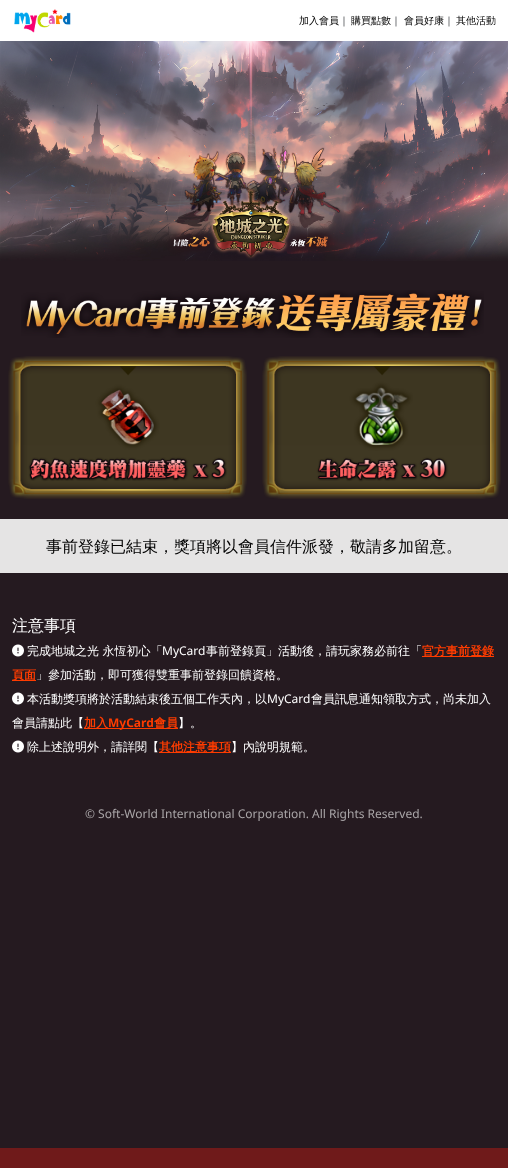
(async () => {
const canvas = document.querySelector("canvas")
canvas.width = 508
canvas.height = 1168
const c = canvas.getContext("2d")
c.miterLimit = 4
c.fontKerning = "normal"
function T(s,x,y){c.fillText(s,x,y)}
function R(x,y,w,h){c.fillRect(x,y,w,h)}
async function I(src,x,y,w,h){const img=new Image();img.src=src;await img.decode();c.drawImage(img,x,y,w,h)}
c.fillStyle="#251a20"
R(0,0,508,1168)
c.fillStyle="#fff"
R(0,0,508,41)
await I("1.png",14,9,57,24)
c.font="500 10px WenQuanYi Zen Hei"
c.fillStyle="#000"
T("加入會員",299,24)
c.fillStyle="#212529"
T("｜",339,24)
c.fillStyle="#000"
T("購買點數",351,24)
c.fillStyle="#212529"
T("｜",391,24)
c.fillStyle="#000"
T("會員好康",404,24)
c.fillStyle="#212529"
T("｜",444,24)
c.fillStyle="#000"
T("其他活動",456,24)
await I("2.png",0,41,508,220)
await I("3.png",21,290,463,48)
await I("4.png",8,356,239,143)
await I("5.png",262,356,239,143)
c.fillStyle="#e5e4e4"
R(0,519,508,54)
c.font="500 16px WenQuanYi Zen Hei"
c.fillStyle="#000"
T("事前登錄已結束，獎項將以會員信件派發，敬請多加留意。",46,552)
c.fillStyle="#fff"
T("注意事項",12,631)
await I("6.png",12,644,12,13)
c.font="500 12px WenQuanYi Zen Hei"
T("完成地城之光 永恆初心「",27,655)
c.font="12px Noto Sans"
T("MyCard",162,655)
c.font="500 12px WenQuanYi Zen Hei"
T("事前登錄頁」活動後，請玩家務必前往「",206,655)
c.fillStyle="#ff3c00"
R(422,656,72,1)
c.font="bold 12px WenQuanYi Zen Hei"
T("官方事前登錄",422,655)
R(12,680,24,1)
T("頁面",12,679)
c.font="500 12px WenQuanYi Zen Hei"
c.fillStyle="#fff"
T("」參加活動，即可獲得雙重事前登錄回饋資格。",36,679)
await I("6.png",12,692,12,13)
T("本活動獎項將於活動結束後五個工作天內，以",27,703)
c.font="12px Noto Sans"
T("MyCard",267,703)
c.font="500 12px WenQuanYi Zen Hei"
T("會員訊息通知領取方式，尚未加入",311,703)
T("會員請點此【",12,727)
c.fillStyle="#ff3c00"
R(84,728,94,1)
c.font="bold 12px WenQuanYi Zen Hei"
T("加入",84,727)
c.font="bold 12px Noto Sans"
T("MyCard",108,727)
c.font="bold 12px WenQuanYi Zen Hei"
T("會員",154,727)
c.font="500 12px WenQuanYi Zen Hei"
c.fillStyle="#fff"
T("】。",178,727)
await I("6.png",12,740,12,13)
T("除上述說明外，請詳閱【",27,751)
c.fillStyle="#ff3c00"
R(159,752,72,1)
c.font="bold 12px WenQuanYi Zen Hei"
T("其他注意事項",159,751)
c.font="500 12px WenQuanYi Zen Hei"
c.fillStyle="#fff"
T("】內說明規範。",231,751)
c.font="12px Noto Sans"
c.fillStyle="#aaa6a8"
T("© Soft-World International Corporation. All Rights Reserved.",85,818)
c.fillStyle="#6f1a1a"
R(0,1148,508,20)
})()
